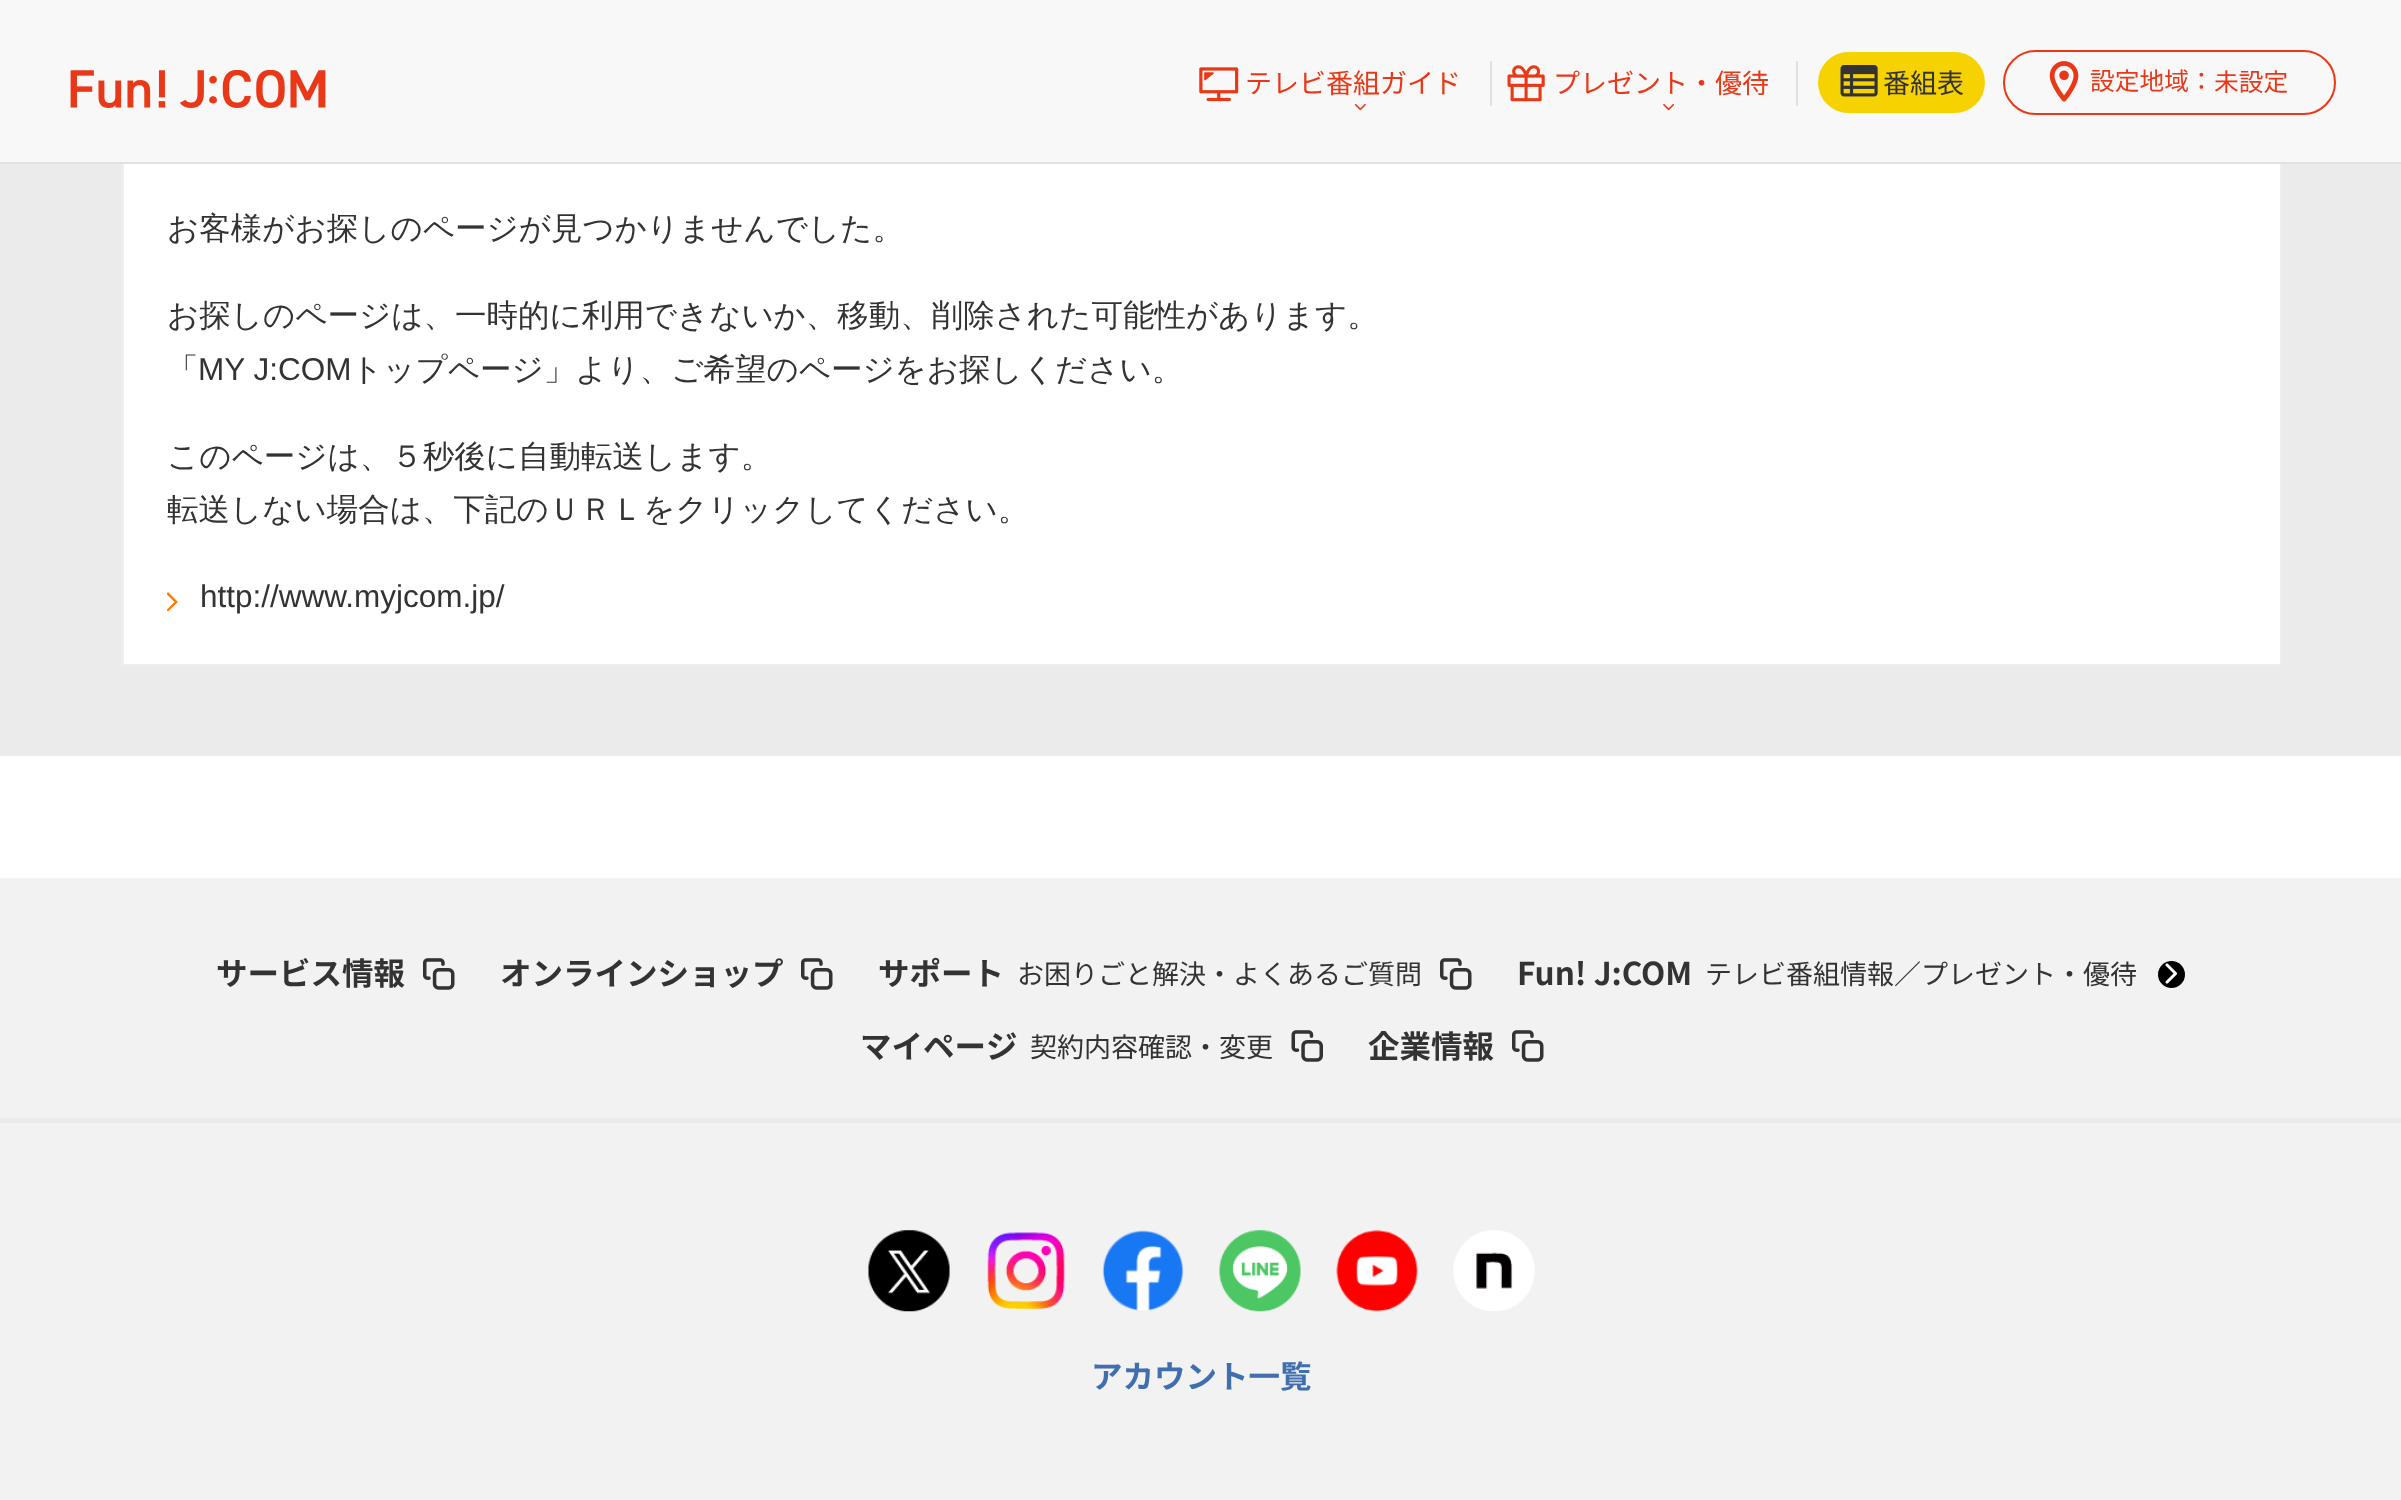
(async () => {
const canvas = document.querySelector("canvas")
canvas.width = 2401
canvas.height = 1500
const c = canvas.getContext("2d")
c.miterLimit = 4
c.fontKerning = "normal"
function T(s,x,y){c.fillText(s,x,y)}
function R(x,y,w,h){c.fillRect(x,y,w,h)}
function Q(x,y,w,h,r){c.beginPath();c.roundRect(x,y,w,h,r);c.fill()}
async function I(src,x,y,w,h){const img=new Image();img.src=src;await img.decode();c.drawImage(img,x,y,w,h)}
let path
c.fillStyle="#fff"
R(0,0,2401,1500)
c.fillStyle="#ebebeb"
R(0,164,2401,592)
c.fillStyle="#fff"
R(124,164,2156,500)
c.strokeStyle="#eee"
c.lineWidth=2
c.strokeRect(123,159,2158,506)
c.fillStyle="#f8f8f8"
R(0,0,2401,162)
c.fillStyle="#e1e1e1"
R(0,162,2401,2)
await I("1.png",70,70,256,38)
await I("2.png",1199,67,40,35)
c.font="27px Noto Sans JP"
c.fillStyle="#e93817"
T("テレビ番組ガイド",1245,93)
await I("3.png",1354,104,12,7)
c.fillStyle="#e1e1e1"
R(1490,61,2,45)
await I("4.png",1507,65,38,37)
c.fillStyle="#e93817"
T("プレゼント・優待",1553,93)
await I("5.png",1663,104,11,7)
c.fillStyle="#e1e1e1"
R(1796,61,2,45)
c.fillStyle="#f5d200"
Q(1818,52,167,61,30.5)
await I("6.png",1840,65,38,32)
c.fillStyle="#333"
T("番組表",1883,93)
c.beginPath()
c.roundRect(2004,51,331,63,31.5)
c.strokeStyle="#e93817"
c.stroke()
await I("7.png",2049,61,30,41)
c.font="24.75px Noto Sans JP"
c.fillStyle="#e93817"
T("設定地域：",2090,90)
T("未設定",2214,91)
c.font="500 31.5px WenQuanYi Zen Hei"
c.fillStyle="#333"
T("お客様がお探しのページが見つかりませんでした。",167,239)
T("お探しのページは、一時的に利用できないか、移動、削除された可能性があります。",167,326)
T("「",167,380)
c.font="31.5px Liberation Sans"
T("MY J:COM",198,380)
c.font="500 31.5px WenQuanYi Zen Hei"
T("トップページ」より、ご希望のページをお探しください。",351,380)
T("このページは、５秒後に自動転送します。",167,467)
T("転送しない場合は、下記のＵＲＬをクリックしてください。",167,520)
c.font="31.5px Liberation Sans"
T("http://www.myjcom.jp/",200,607)
c.save()
c.beginPath()
c.rect(167,592,11,20)
c.clip()
c.fillStyle="#ff7900"
path = new Path2D("M166.5 594l8 8l-8 8l1.5 1.5l10-9.5l-10-10z")
c.fill(path,"evenodd")
c.restore()
c.fillStyle="#f2f2f2"
R(0,878,2401,240)
c.fillStyle="#eaeaea"
R(0,1118,2401,5)
c.font="bold 31.5px Noto Sans JP"
c.fillStyle="#333"
T("サービス情報",216,985)
await I("8.png",423,958,32,32)
T("オンラインショップ",500,985)
await I("8.png",801,958,32,32)
T("サポート",878,985)
c.font="27px Noto Sans JP"
T("お困りごと解決・よくあるご質問",1017,984)
await I("8.png",1440,958,32,32)
c.font="bold 31.5px Noto Sans JP"
T("Fun! J:COM",1517,985)
c.font="27px Noto Sans JP"
T("テレビ番組情報／プレゼント・優待",1705,984)
c.fillStyle="#000"
c.beginPath()
c.arc(2171.5,974.5,13.5,0,7)
c.fill()
await I("9.png",2165,963,12,21)
c.font="bold 31.5px Noto Sans JP"
c.fillStyle="#333"
T("マイページ",860,1058)
c.font="27px Noto Sans JP"
T("契約内容確認・変更",1030,1057)
await I("10.png",1291,1030,32,32)
c.font="bold 31.5px Noto Sans JP"
T("企業情報",1368,1058)
await I("8.png",1512,1030,32,32)
c.fillStyle="#f2f2f2"
R(0,1123,2401,377)
await I("11.png",868,1230,82,82)
await I("12.png",987,1232,78,78)
await I("13.png",1102,1230,82,81)
await I("14.png",1219,1230,82,82)
await I("15.png",1336,1230,82,82)
await I("16.png",1453,1230,82,81)
c.fillStyle="#406faf"
T("アカウント一覧",1091,1388)
})()
